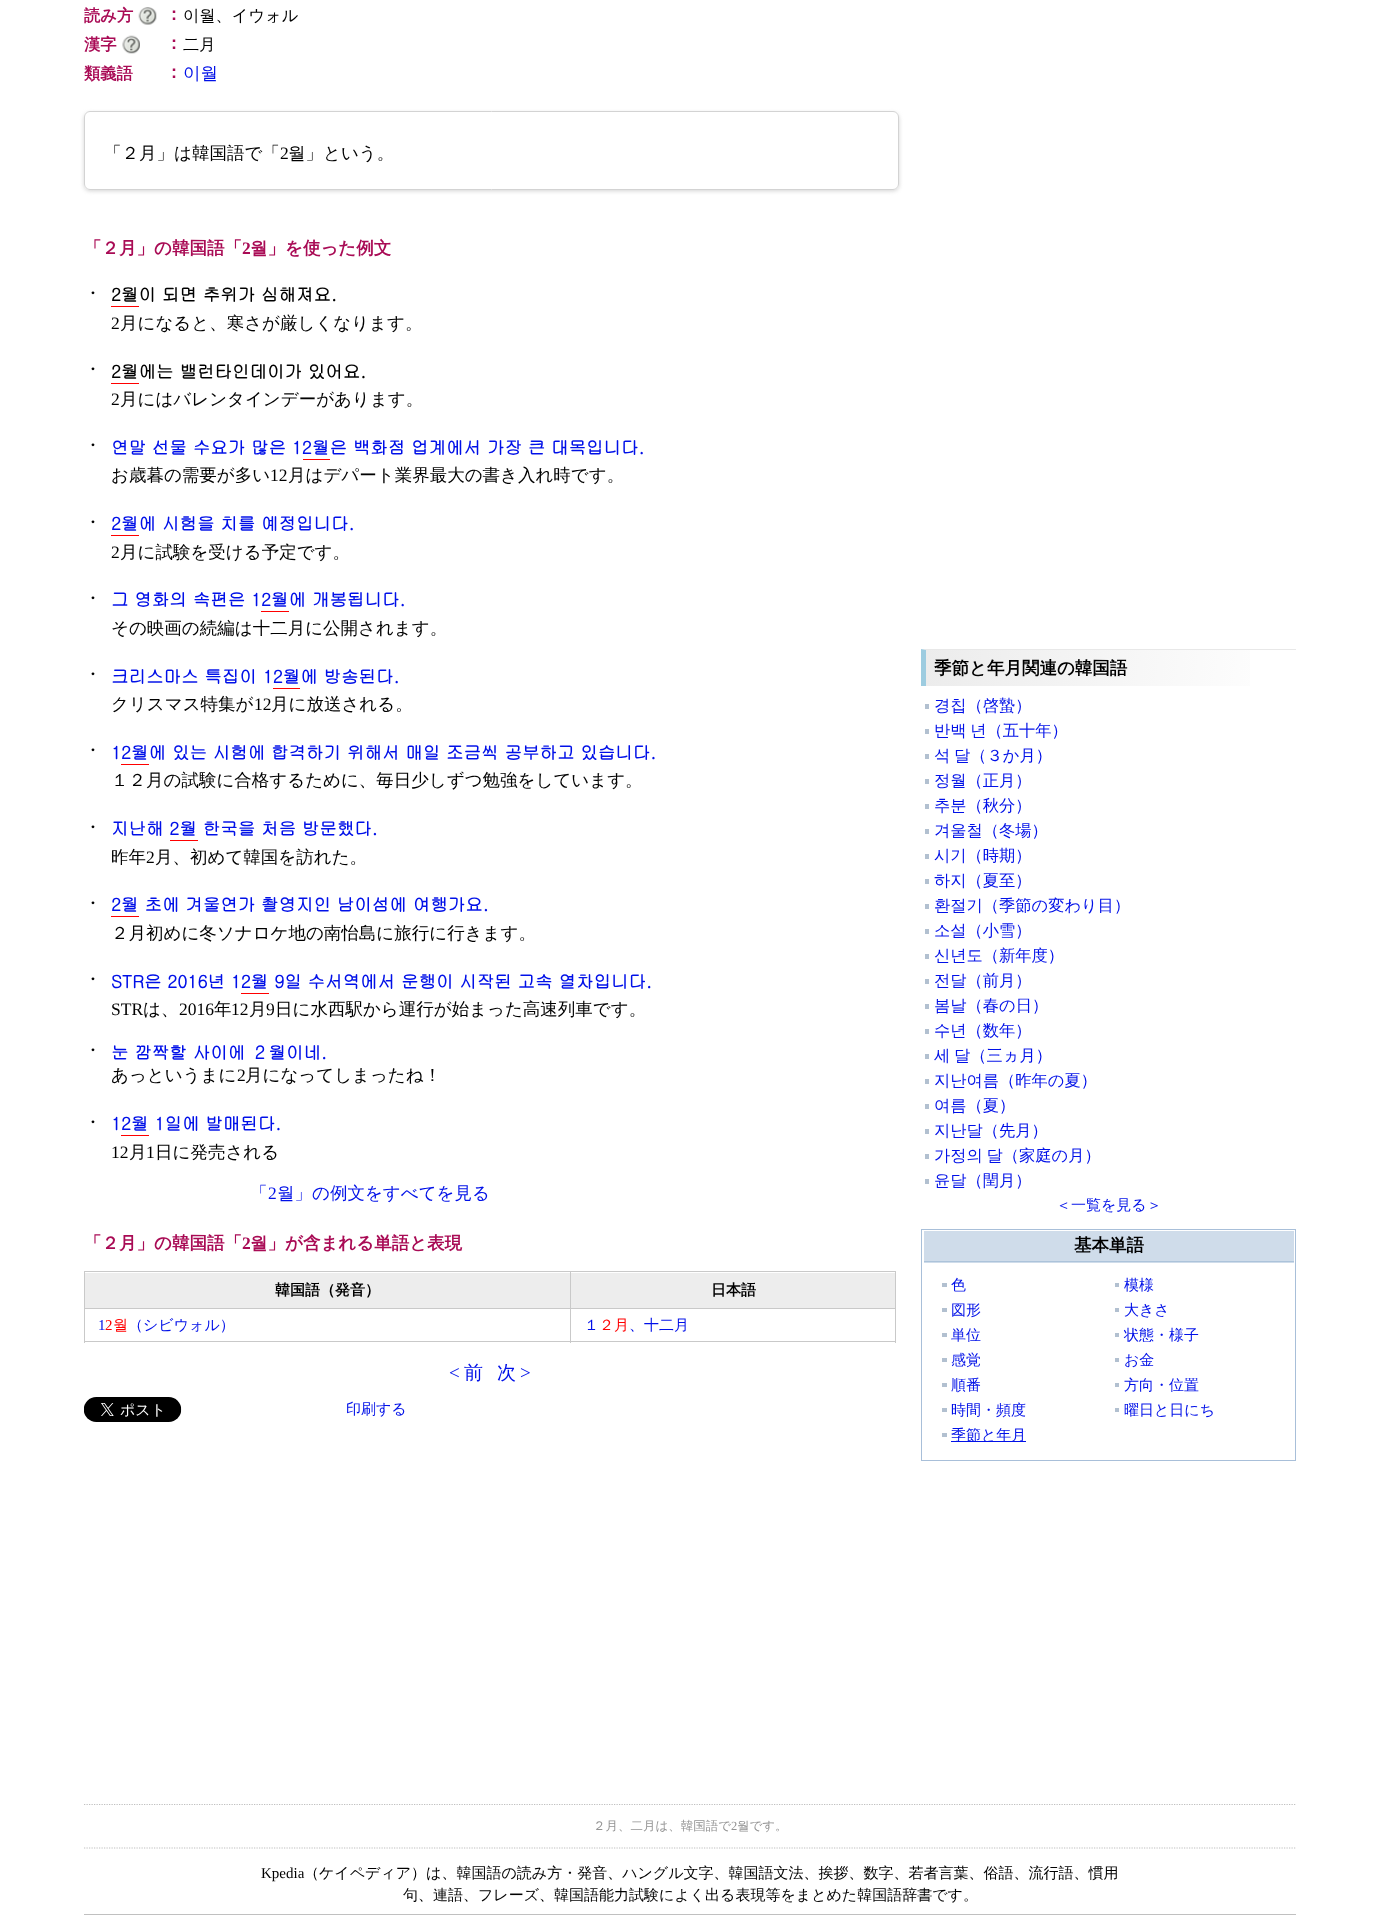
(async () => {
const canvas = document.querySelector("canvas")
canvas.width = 1380
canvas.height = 1931
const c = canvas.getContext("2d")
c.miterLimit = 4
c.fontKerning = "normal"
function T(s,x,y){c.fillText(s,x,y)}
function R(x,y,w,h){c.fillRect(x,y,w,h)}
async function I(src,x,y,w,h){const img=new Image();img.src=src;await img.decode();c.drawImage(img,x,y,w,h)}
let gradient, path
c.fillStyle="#fff"
R(0,0,1380,1931)
c.font="bold 16.25px WenQuanYi Zen Hei"
c.fillStyle="#a90b55"
T("読み方",84,21)
await I("1.png",138,7,19,18)
c.font="bold 17.5px WenQuanYi Zen Hei"
T("：",165,20)
c.font="500 16.25px WenQuanYi Zen Hei"
c.fillStyle="#000"
T("이월、イウォル",183,21)
c.font="bold 16.25px WenQuanYi Zen Hei"
c.fillStyle="#a90b55"
T("漢字",84,50)
await I("2.png",122,35,18,19)
c.font="bold 17.5px WenQuanYi Zen Hei"
T("：",165,49)
c.font="500 16.25px WenQuanYi Zen Hei"
c.fillStyle="#000"
T("二月",183,50)
c.font="bold 16.25px WenQuanYi Zen Hei"
c.fillStyle="#a90b55"
T("類義語",84,79)
c.font="bold 17.5px WenQuanYi Zen Hei"
T("：",165,78)
c.font="500 17.5px WenQuanYi Zen Hei"
c.fillStyle="#0010e8"
T("이월",183,79)
c.save()
path = new Path2D("M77 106h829v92h-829zm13 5h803c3.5 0 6 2.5 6 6v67c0 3.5-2.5 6-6 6h-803c-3.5 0-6-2.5-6-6v-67c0-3.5 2.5-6 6-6z")
c.clip(path,"evenodd")
c.fillStyle="#d3d3d3"
c.filter="blur(2px)"
c.beginPath()
c.roundRect(84,113,815,78,6)
c.fill()
c.filter="none"
c.restore()
c.beginPath()
c.roundRect(84.5,111.5,814,78,5.5)
c.strokeStyle="#d3d3d3"
c.stroke()
c.fillStyle="#000"
T("「２月」は韓国語で「",104,159)
c.font="17.5px Liberation Serif"
T("2",280,159)
c.font="500 17.5px WenQuanYi Zen Hei"
T("월」という。",288,159)
c.font="bold 17.5px WenQuanYi Zen Hei"
c.fillStyle="#a90b55"
T("「２月」の韓国語「",84,254)
c.font="bold 17.5px Liberation Serif"
T("2",242,254)
c.font="bold 17.5px WenQuanYi Zen Hei"
T("월」を使った例文",250,254)
c.font="500 17.5px WenQuanYi Zen Hei"
c.fillStyle="#000"
T("・",84,299)
c.font="bold 17.5px Gulim"
T("2월이 되면 추위가 심해져요.",111,301)
c.fillStyle="#f00"
R(111,306,28,1)
c.font="17.5px Liberation Serif"
c.fillStyle="#000"
T("2",111,329)
c.font="500 17.5px WenQuanYi Zen Hei"
T("月になると、寒さが厳しくなります。",120,329)
T("・",84,375)
c.font="bold 17.5px Gulim"
T("2월에는 밸런타인데이가 있어요.",111,378)
c.fillStyle="#f00"
R(111,383,28,1)
c.font="17.5px Liberation Serif"
c.fillStyle="#000"
T("2",111,405)
c.font="500 17.5px WenQuanYi Zen Hei"
T("月にはバレンタインデーがあります。",120,405)
T("・",84,451)
c.font="bold 17.5px Gulim"
c.fillStyle="#0010e8"
T("연말 선물 수요가 많은 12월은 백화점 업계에서 가장 큰 대목입니다.",111,454)
c.fillStyle="#f00"
R(303,459,27,1)
c.font="500 17.5px WenQuanYi Zen Hei"
c.fillStyle="#000"
T("お歳暮の需要が多い",111,481)
c.font="17.5px Liberation Serif"
T("12",270,481)
c.font="500 17.5px WenQuanYi Zen Hei"
T("月はデパート業界最大の書き入れ時です。",288,481)
T("・",84,528)
c.font="bold 17.5px Gulim"
c.fillStyle="#0010e8"
T("2월에 시험을 치를 예정입니다.",111,530)
c.fillStyle="#f00"
R(111,535,28,1)
c.font="17.5px Liberation Serif"
c.fillStyle="#000"
T("2",111,558)
c.font="500 17.5px WenQuanYi Zen Hei"
T("月に試験を受ける予定です。",120,558)
T("・",84,604)
c.font="bold 17.5px Gulim"
c.fillStyle="#0010e8"
T("그 영화의 속편은 12월에 개봉됩니다.",111,606)
c.fillStyle="#f00"
R(261,611,28,1)
c.font="500 17.5px WenQuanYi Zen Hei"
c.fillStyle="#000"
T("その映画の続編は十二月に公開されます。",111,634)
T("・",84,680)
c.font="bold 17.5px Gulim"
c.fillStyle="#0010e8"
T("크리스마스 특집이 12월에 방송된다.",111,683)
c.fillStyle="#f00"
R(273,688,27,1)
c.font="500 17.5px WenQuanYi Zen Hei"
c.fillStyle="#000"
T("クリスマス特集が",111,710)
c.font="17.5px Liberation Serif"
T("12",254,710)
c.font="500 17.5px WenQuanYi Zen Hei"
T("月に放送される。",271,710)
T("・",84,756)
c.font="bold 17.5px Gulim"
c.fillStyle="#0010e8"
T("12월에 있는 시험에 합격하기 위해서 매일 조금씩 공부하고 있습니다.",111,759)
c.fillStyle="#f00"
R(121,764,28,1)
c.font="500 17.5px WenQuanYi Zen Hei"
c.fillStyle="#000"
T("１２月の試験に合格するために、毎日少しずつ勉強をしています。",111,786)
T("・",84,833)
c.font="bold 17.5px Gulim"
c.fillStyle="#0010e8"
T("지난해 2월 한국을 처음 방문했다.",111,835)
c.fillStyle="#f00"
R(170,840,28,1)
c.font="500 17.5px WenQuanYi Zen Hei"
c.fillStyle="#000"
T("昨年",111,863)
c.font="17.5px Liberation Serif"
T("2",146,863)
c.font="500 17.5px WenQuanYi Zen Hei"
T("月、初めて韓国を訪れた。",155,863)
T("・",84,909)
c.font="bold 17.5px Gulim"
c.fillStyle="#0010e8"
T("2월 초에 겨울연가 촬영지인 남이섬에 여행가요.",111,911)
c.fillStyle="#f00"
R(111,916,28,1)
c.font="500 17.5px WenQuanYi Zen Hei"
c.fillStyle="#000"
T("２月初めに冬ソナロケ地の南怡島に旅行に行きます。",111,939)
T("・",84,985)
c.font="bold 17.5px Gulim"
c.fillStyle="#0010e8"
T("STR은 2016년 12월 9일 수서역에서 운행이 시작된 고속 열차입니다.",111,988)
c.fillStyle="#f00"
R(241,993,28,1)
c.font="17.5px Liberation Serif"
c.fillStyle="#000"
T("STR",111,1015)
c.font="500 17.5px WenQuanYi Zen Hei"
T("は、",143,1015)
c.font="17.5px Liberation Serif"
T("2016",179,1015)
c.font="500 17.5px WenQuanYi Zen Hei"
T("年",214,1015)
c.font="17.5px Liberation Serif"
T("12",231,1015)
c.font="500 17.5px WenQuanYi Zen Hei"
T("月",249,1015)
c.font="17.5px Liberation Serif"
T("9",266,1015)
c.font="500 17.5px WenQuanYi Zen Hei"
T("日に水西駅から運行が始まった高速列車です。",275,1015)
T("・",84,1056)
c.font="bold 17.5px Gulim"
c.fillStyle="#0010e8"
T("눈 깜짝할 사이에 ２월이네.",111,1059)
c.font="500 17.5px WenQuanYi Zen Hei"
c.fillStyle="#000"
T("あっというまに",111,1081)
c.font="17.5px Liberation Serif"
T("2",237,1081)
c.font="500 17.5px WenQuanYi Zen Hei"
T("月になってしまったね！",245,1081)
T("・",84,1128)
c.font="bold 17.5px Gulim"
c.fillStyle="#0010e8"
T("12월 1일에 발매된다.",111,1130)
c.fillStyle="#f00"
R(121,1135,28,1)
c.font="17.5px Liberation Serif"
c.fillStyle="#000"
T("12",111,1158)
c.font="500 17.5px WenQuanYi Zen Hei"
T("月",129,1158)
c.font="17.5px Liberation Serif"
T("1",146,1158)
c.font="500 17.5px WenQuanYi Zen Hei"
T("日に発売される",155,1158)
c.fillStyle="#0010e8"
T("「",250,1199)
c.font="17.5px Liberation Serif"
T("2",268,1199)
c.font="500 17.5px WenQuanYi Zen Hei"
T("월」の例文をすべてを見る",277,1199)
c.font="bold 17.5px WenQuanYi Zen Hei"
c.fillStyle="#a90b55"
T("「２月」の韓国語「",84,1249)
c.font="bold 17.5px Liberation Serif"
T("2",242,1249)
c.font="bold 17.5px WenQuanYi Zen Hei"
T("월」が含まれる単語と表現",250,1249)
c.fillStyle="#ededed"
R(85,1273,485,35)
c.fillStyle="#c9c9c9"
R(570,1271,326,1)
R(570,1308,326,1)
R(895,1308,1,35)
R(570,1341,326,1)
R(570,1308,1,35)
R(84,1308,487,1)
R(570,1271,1,38)
R(84,1271,487,1)
R(84,1341,487,1)
R(84,1308,1,35)
R(84,1271,1,38)
c.font="bold 15px WenQuanYi Zen Hei"
c.fillStyle="#000"
T("韓国語（発音）",275,1295)
c.fillStyle="#ededed"
R(571,1273,324,35)
c.fillStyle="#c9c9c9"
R(895,1271,1,38)
c.fillStyle="#000"
T("日本語",711,1295)
c.font="15px Liberation Serif"
c.fillStyle="#0010e8"
T("1",98,1330)
c.fillStyle="#f00"
T("2",105,1330)
c.font="500 15px WenQuanYi Zen Hei"
T("월",113,1330)
c.fillStyle="#0010e8"
T("（シビウォル）",128,1330)
T("１",584,1330)
c.fillStyle="#f00"
T("２月",599,1330)
c.fillStyle="#0010e8"
T("、十二月",629,1330)
c.font="19px Liberation Serif"
T("<",449,1379)
c.font="500 19px WenQuanYi Zen Hei"
T("前",464,1379)
T("次",497,1379)
c.font="19px Liberation Serif"
T(">",520,1379)
await I("3.png",84,1397,98,25)
c.font="500 15px WenQuanYi Zen Hei"
T("印刷する",346,1414)
gradient = c.createLinearGradient(926,650,1296,686)
gradient.addColorStop(0,"#ececec")
gradient.addColorStop(1,"#fff")
c.fillStyle = gradient
R(926,650,324,36)
c.fillStyle="#e8e8e8"
path = new Path2D("M921 649h375v1h-370z")
c.fill(path)
c.fillStyle="#9dcce0"
path = new Path2D("M921 686v-37l5 1v36z")
c.fill(path)
c.font="bold 17.5px WenQuanYi Zen Hei"
c.fillStyle="#000"
T("季節と年月関連の韓国語",934,674)
c.fillStyle="#b2c0d0"
R(925,704,4,5)
c.font="500 16.25px WenQuanYi Zen Hei"
c.fillStyle="#0010e8"
T("경칩（啓蟄）",934,711)
c.fillStyle="#b2c0d0"
R(925,729,4,5)
c.wordSpacing="-1px"
c.fillStyle="#0010e8"
T("반백 년（五十年）",934,736)
c.fillStyle="#b2c0d0"
R(925,754,4,5)
c.fillStyle="#0010e8"
T("석 달（３か月）",934,761)
c.fillStyle="#b2c0d0"
R(925,779,4,5)
c.wordSpacing="0px"
c.fillStyle="#0010e8"
T("정월（正月）",934,786)
c.fillStyle="#b2c0d0"
R(925,804,4,5)
c.fillStyle="#0010e8"
T("추분（秋分）",934,811)
c.fillStyle="#b2c0d0"
R(925,829,4,5)
c.fillStyle="#0010e8"
T("겨울철（冬場）",934,836)
c.fillStyle="#b2c0d0"
R(925,854,4,5)
c.fillStyle="#0010e8"
T("시기（時期）",934,861)
c.fillStyle="#b2c0d0"
R(925,879,4,5)
c.fillStyle="#0010e8"
T("하지（夏至）",934,886)
c.fillStyle="#b2c0d0"
R(925,904,4,5)
c.fillStyle="#0010e8"
T("환절기（季節の変わり目）",934,911)
c.fillStyle="#b2c0d0"
R(925,929,4,5)
c.fillStyle="#0010e8"
T("소설（小雪）",934,936)
c.fillStyle="#b2c0d0"
R(925,954,4,5)
c.fillStyle="#0010e8"
T("신년도（新年度）",934,961)
c.fillStyle="#b2c0d0"
R(925,979,4,5)
c.fillStyle="#0010e8"
T("전달（前月）",934,986)
c.fillStyle="#b2c0d0"
R(925,1004,4,5)
c.fillStyle="#0010e8"
T("봄날（春の日）",934,1011)
c.fillStyle="#b2c0d0"
R(925,1029,4,5)
c.fillStyle="#0010e8"
T("수년（数年）",934,1036)
c.fillStyle="#b2c0d0"
R(925,1054,4,5)
c.wordSpacing="-1px"
c.fillStyle="#0010e8"
T("세 달（三ヵ月）",934,1061)
c.fillStyle="#b2c0d0"
R(925,1079,4,5)
c.wordSpacing="0px"
c.fillStyle="#0010e8"
T("지난여름（昨年の夏）",934,1086)
c.fillStyle="#b2c0d0"
R(925,1104,4,5)
c.fillStyle="#0010e8"
T("여름（夏）",934,1111)
c.fillStyle="#b2c0d0"
R(925,1129,4,5)
c.fillStyle="#0010e8"
T("지난달（先月）",934,1136)
c.fillStyle="#b2c0d0"
R(925,1154,4,5)
c.wordSpacing="-1px"
c.fillStyle="#0010e8"
T("가정의 달（家庭の月）",934,1161)
c.fillStyle="#b2c0d0"
R(925,1179,4,5)
c.wordSpacing="0px"
c.fillStyle="#0010e8"
T("윤달（閏月）",934,1186)
c.font="500 15px WenQuanYi Zen Hei"
T("＜一覧を見る＞",1056,1210)
c.strokeStyle="#a8bfd9"
c.strokeRect(921.5,1229.5,374,231)
c.fillStyle="#cfdcea"
R(924,1231,370,32)
c.fillStyle="#acc3da"
R(924,1261,370,1)
c.font="bold 17.5px WenQuanYi Zen Hei"
c.fillStyle="#000"
T("基本単語",1074,1251)
c.fillStyle="#b2c0d0"
R(942,1283,5,4)
c.font="500 15px WenQuanYi Zen Hei"
c.fillStyle="#0010e8"
T("色",951,1290)
c.fillStyle="#b2c0d0"
R(1115,1283,4,4)
c.fillStyle="#0010e8"
T("模様",1124,1290)
c.fillStyle="#b2c0d0"
R(942,1308,5,4)
c.fillStyle="#0010e8"
T("図形",951,1315)
c.fillStyle="#b2c0d0"
R(1115,1308,4,4)
c.fillStyle="#0010e8"
T("大きさ",1124,1315)
c.fillStyle="#b2c0d0"
R(942,1333,5,4)
c.fillStyle="#0010e8"
T("単位",951,1340)
c.fillStyle="#b2c0d0"
R(1115,1333,4,4)
c.fillStyle="#0010e8"
T("状態・様子",1124,1340)
c.fillStyle="#b2c0d0"
R(942,1358,5,4)
c.fillStyle="#0010e8"
T("感覚",951,1365)
c.fillStyle="#b2c0d0"
R(1115,1358,4,4)
c.fillStyle="#0010e8"
T("お金",1124,1365)
c.fillStyle="#b2c0d0"
R(942,1383,5,4)
c.fillStyle="#0010e8"
T("順番",951,1390)
c.fillStyle="#b2c0d0"
R(1115,1383,4,4)
c.fillStyle="#0010e8"
T("方向・位置",1124,1390)
c.fillStyle="#b2c0d0"
R(942,1408,5,4)
c.fillStyle="#0010e8"
T("時間・頻度",951,1415)
c.fillStyle="#b2c0d0"
R(1115,1408,4,4)
c.fillStyle="#0010e8"
T("曜日と日にち",1124,1415)
c.fillStyle="#b2c0d0"
R(942,1433,5,4)
c.fillStyle="#0010e8"
R(951,1441,75,1)
T("季節と年月",951,1440)
path = new Path2D("M84 1804.5h1212")
c.strokeStyle="#c0c0c0"
c.lineWidth=1.2
c.setLineDash([1.25,1.25])
c.stroke(path)
c.font="500 12.5px WenQuanYi Zen Hei"
c.fillStyle="#939393"
T("２月、二月は、韓国語で",593,1830)
c.font="12.5px Liberation Serif"
T("2",731,1830)
c.font="500 12.5px WenQuanYi Zen Hei"
T("월です。",737,1830)
path = new Path2D("M84 1848h1212")
c.stroke(path)
c.font="15px Liberation Serif"
c.fillStyle="#000"
T("Kpedia",261,1878)
c.font="500 15px WenQuanYi Zen Hei"
T("（ケイペディア）は、韓国語の読み方・発音、ハングル文字、韓国語文法、挨拶、数字、若者言葉、俗語、流行語、慣用",304,1878)
T("句、連語、フレーズ、韓国語能力試験によく出る表現等をまとめた韓国語辞書です。",403,1900)
c.fillStyle="#c0c0c0"
R(84,1914,1212,1)
})()
